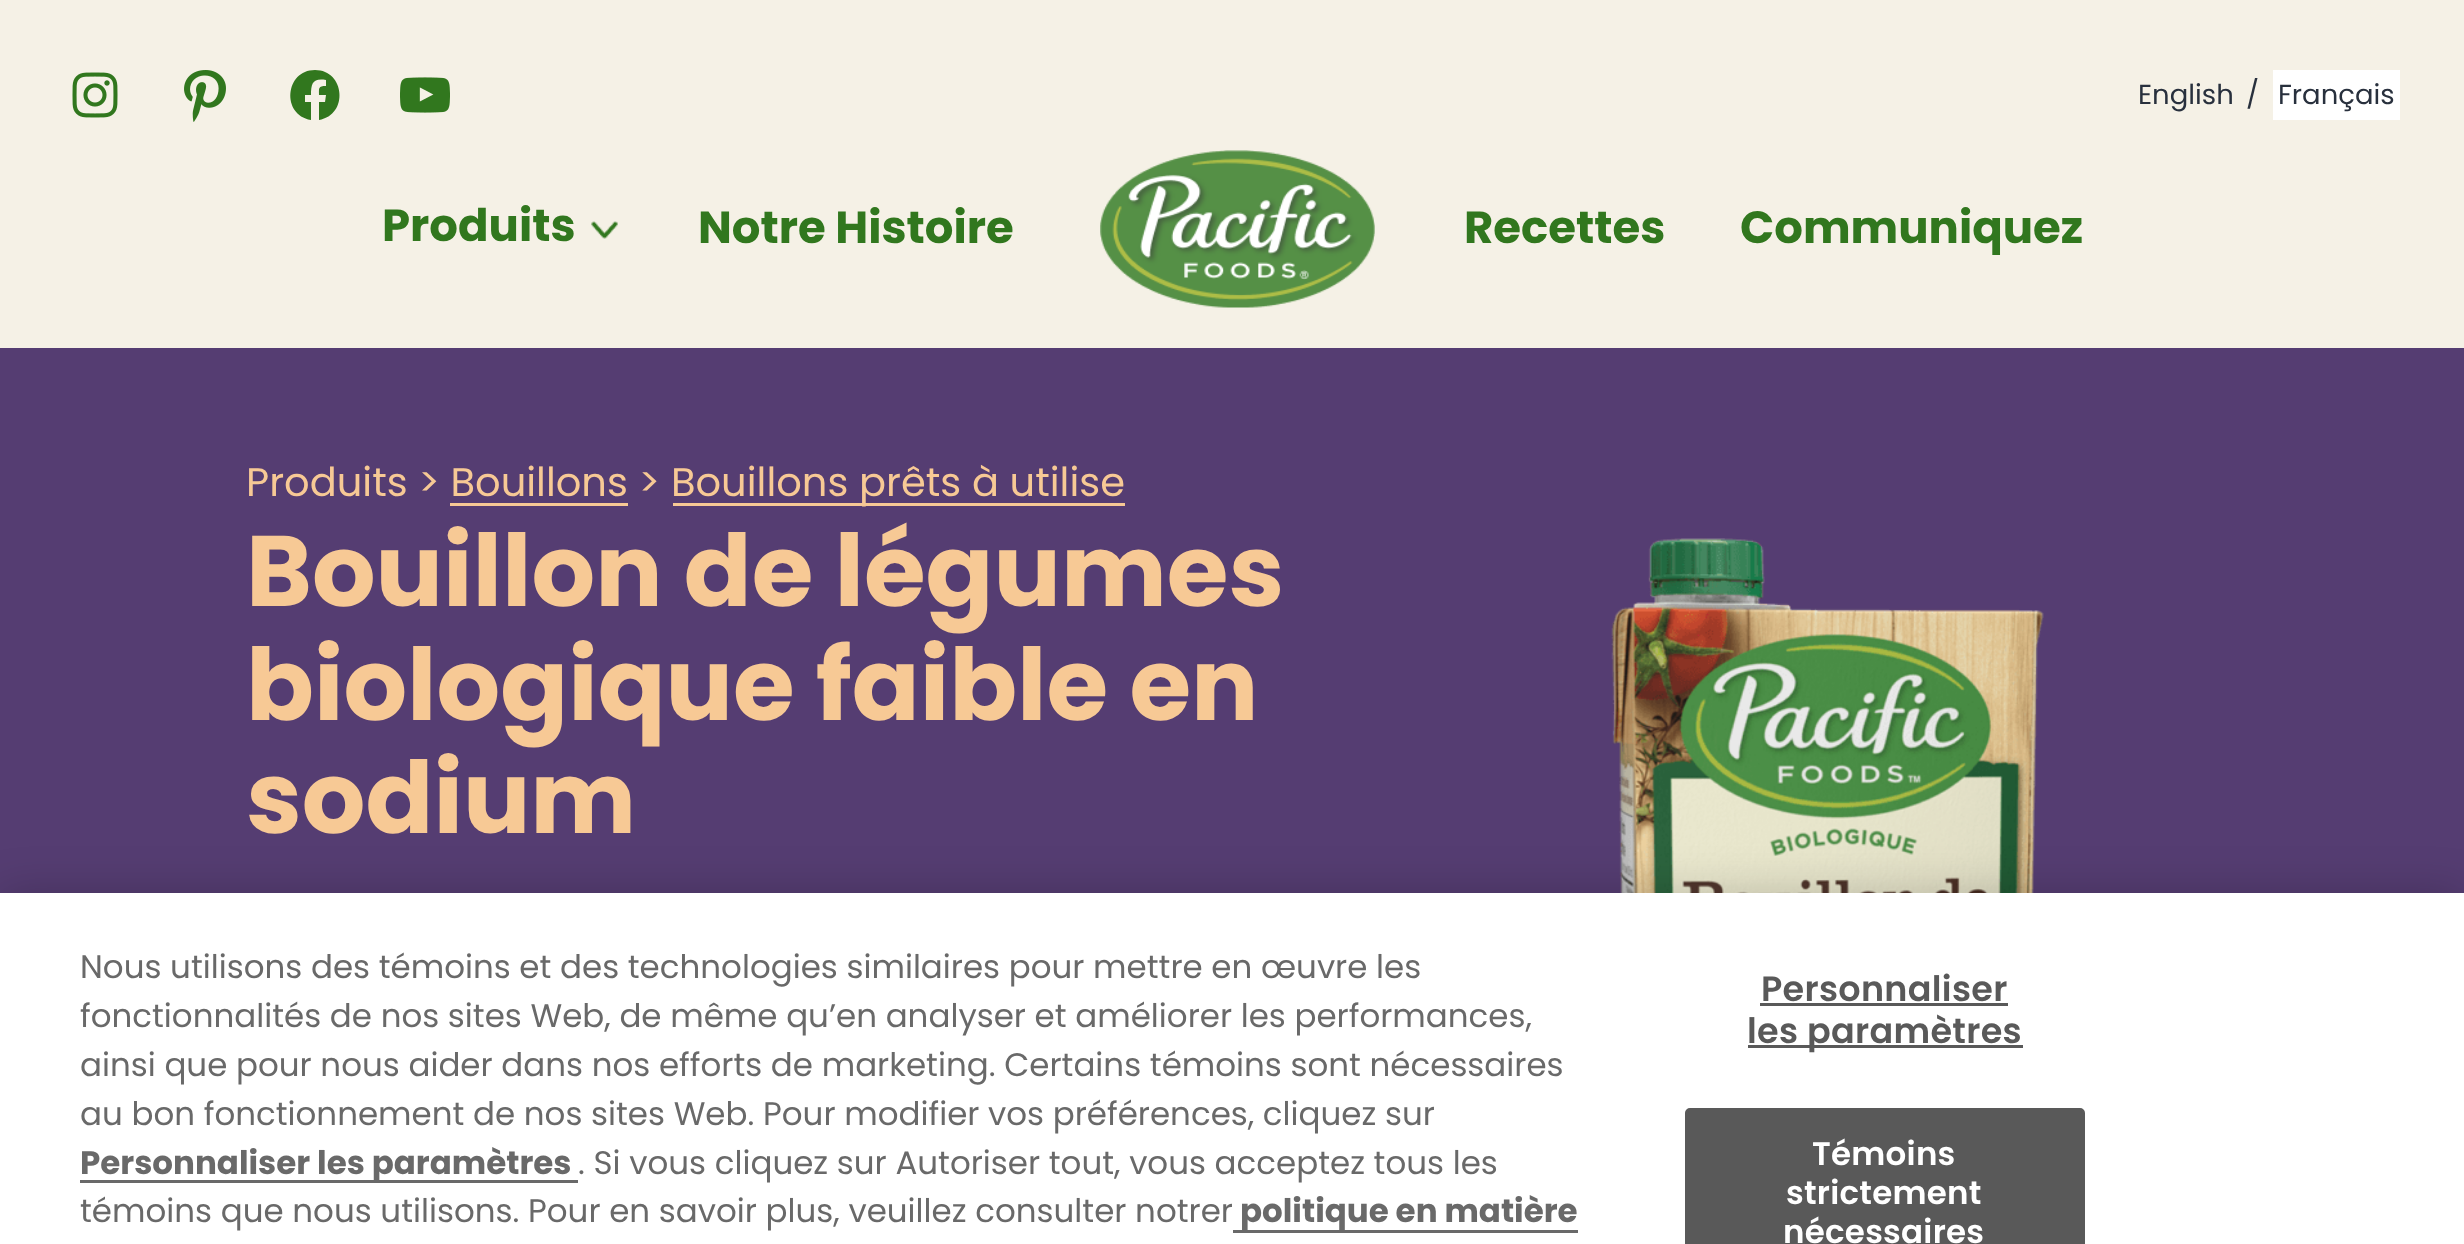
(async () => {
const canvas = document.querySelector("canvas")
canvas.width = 2464
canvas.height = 1244
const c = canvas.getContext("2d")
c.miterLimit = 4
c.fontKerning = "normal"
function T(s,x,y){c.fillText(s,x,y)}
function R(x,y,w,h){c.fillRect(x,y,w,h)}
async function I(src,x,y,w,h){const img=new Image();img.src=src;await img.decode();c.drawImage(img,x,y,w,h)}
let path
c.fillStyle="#f5f1e6"
R(0,0,2464,1244)
await I("1.png",72,72,46,46)
await I("2.png",184,70,42,52)
c.fillStyle="#31771e"
path = new Path2D("M315 70c-30 0-34 45-4 50v-18h-6v-7h6c0-12 2-17 15-15v6c-8 0-7 2-7 9h7l-1 7h-6v18c30-5 26-50-4-50z")
c.fill(path)
await I("3.png",400,77,50,36)
c.font="27.5px Poppins"
c.fillStyle="#28303d"
T("English",2138,104)
T("/",2246,104)
c.fillStyle="#fff"
R(2273,70,127,50)
c.fillStyle="#28303d"
T("Français",2278,104)
c.font="bold 45px Poppins"
c.fillStyle="#31771e"
T("Produits",382,241)
await I("4.png",591,221,27,18)
T("Notre Histoire",698,243)
await I("5.png",1100,150,275,158)
T("Recettes",1464,243)
T("Communiquez",1740,243)
c.fillStyle="#553d72"
R(0,348,2464,545)
c.font="40px Poppins"
c.fillStyle="#f7c995"
T("Produits > Bouillons >",246,496)
R(673,503,452,3)
T("Bouillons prêts à utilise",671,496)
R(450,503,178,3)
c.font="bold 100px Poppins"
T("Bouillon de légumes",246,606)
await I("6.png",1611,538,433,355)
T("biologique faible en",246,720)
T("sodium",246,833)
c.fillStyle="#00000033"
c.filter="blur(22.5px)"
c.beginPath()
c.rect(0,893,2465,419)
c.fill()
c.filter="none"
c.fillStyle="#fff"
R(0,893,2464,351)
c.font="32.5px Poppins"
c.fillStyle="#696969"
T("Nous utilisons des témoins et des technologies similaires pour mettre en œuvre les",80,978)
T("fonctionnalités de nos sites Web, de même qu’en analyser et améliorer les performances,",80,1027)
T("ainsi que pour nous aider dans nos efforts de marketing. Certains témoins sont nécessaires",80,1076)
T("au bon fonctionnement de nos sites Web. Pour modifier vos préférences, cliquez sur",80,1125)
R(80,1180,498,3)
c.font="bold 32.5px Poppins"
T("Personnaliser les paramètres",80,1174)
c.font="32.5px Poppins"
T(". Si vous cliquez sur Autoriser tout, vous acceptez tous les",578,1174)
T("témoins que nous utilisons. Pour en savoir plus, veuillez consulter notrer",80,1222)
R(1233,1230,345,3)
c.font="bold 32.5px Poppins"
T("politique en matière",1240,1222)
c.letterSpacing="0.3px"
c.font="600 35px Poppins"
c.fillStyle="#595959"
T("Personnaliser",1761,1001)
R(1760,1003,248,3)
R(1748,1045,275,3)
T("les paramètres",1747,1043)
c.beginPath()
c.roundRect(1686.5,1109.5,397,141,3.5)
c.fill()
c.strokeStyle="#595959"
c.lineWidth=3
c.stroke()
c.letterSpacing="0.25px"
c.font="600 32.5px Poppins"
c.fillStyle="#fff"
T("Témoins",1812,1165)
T("strictement",1786,1204)
T("nécessaires",1783,1243)
})()
